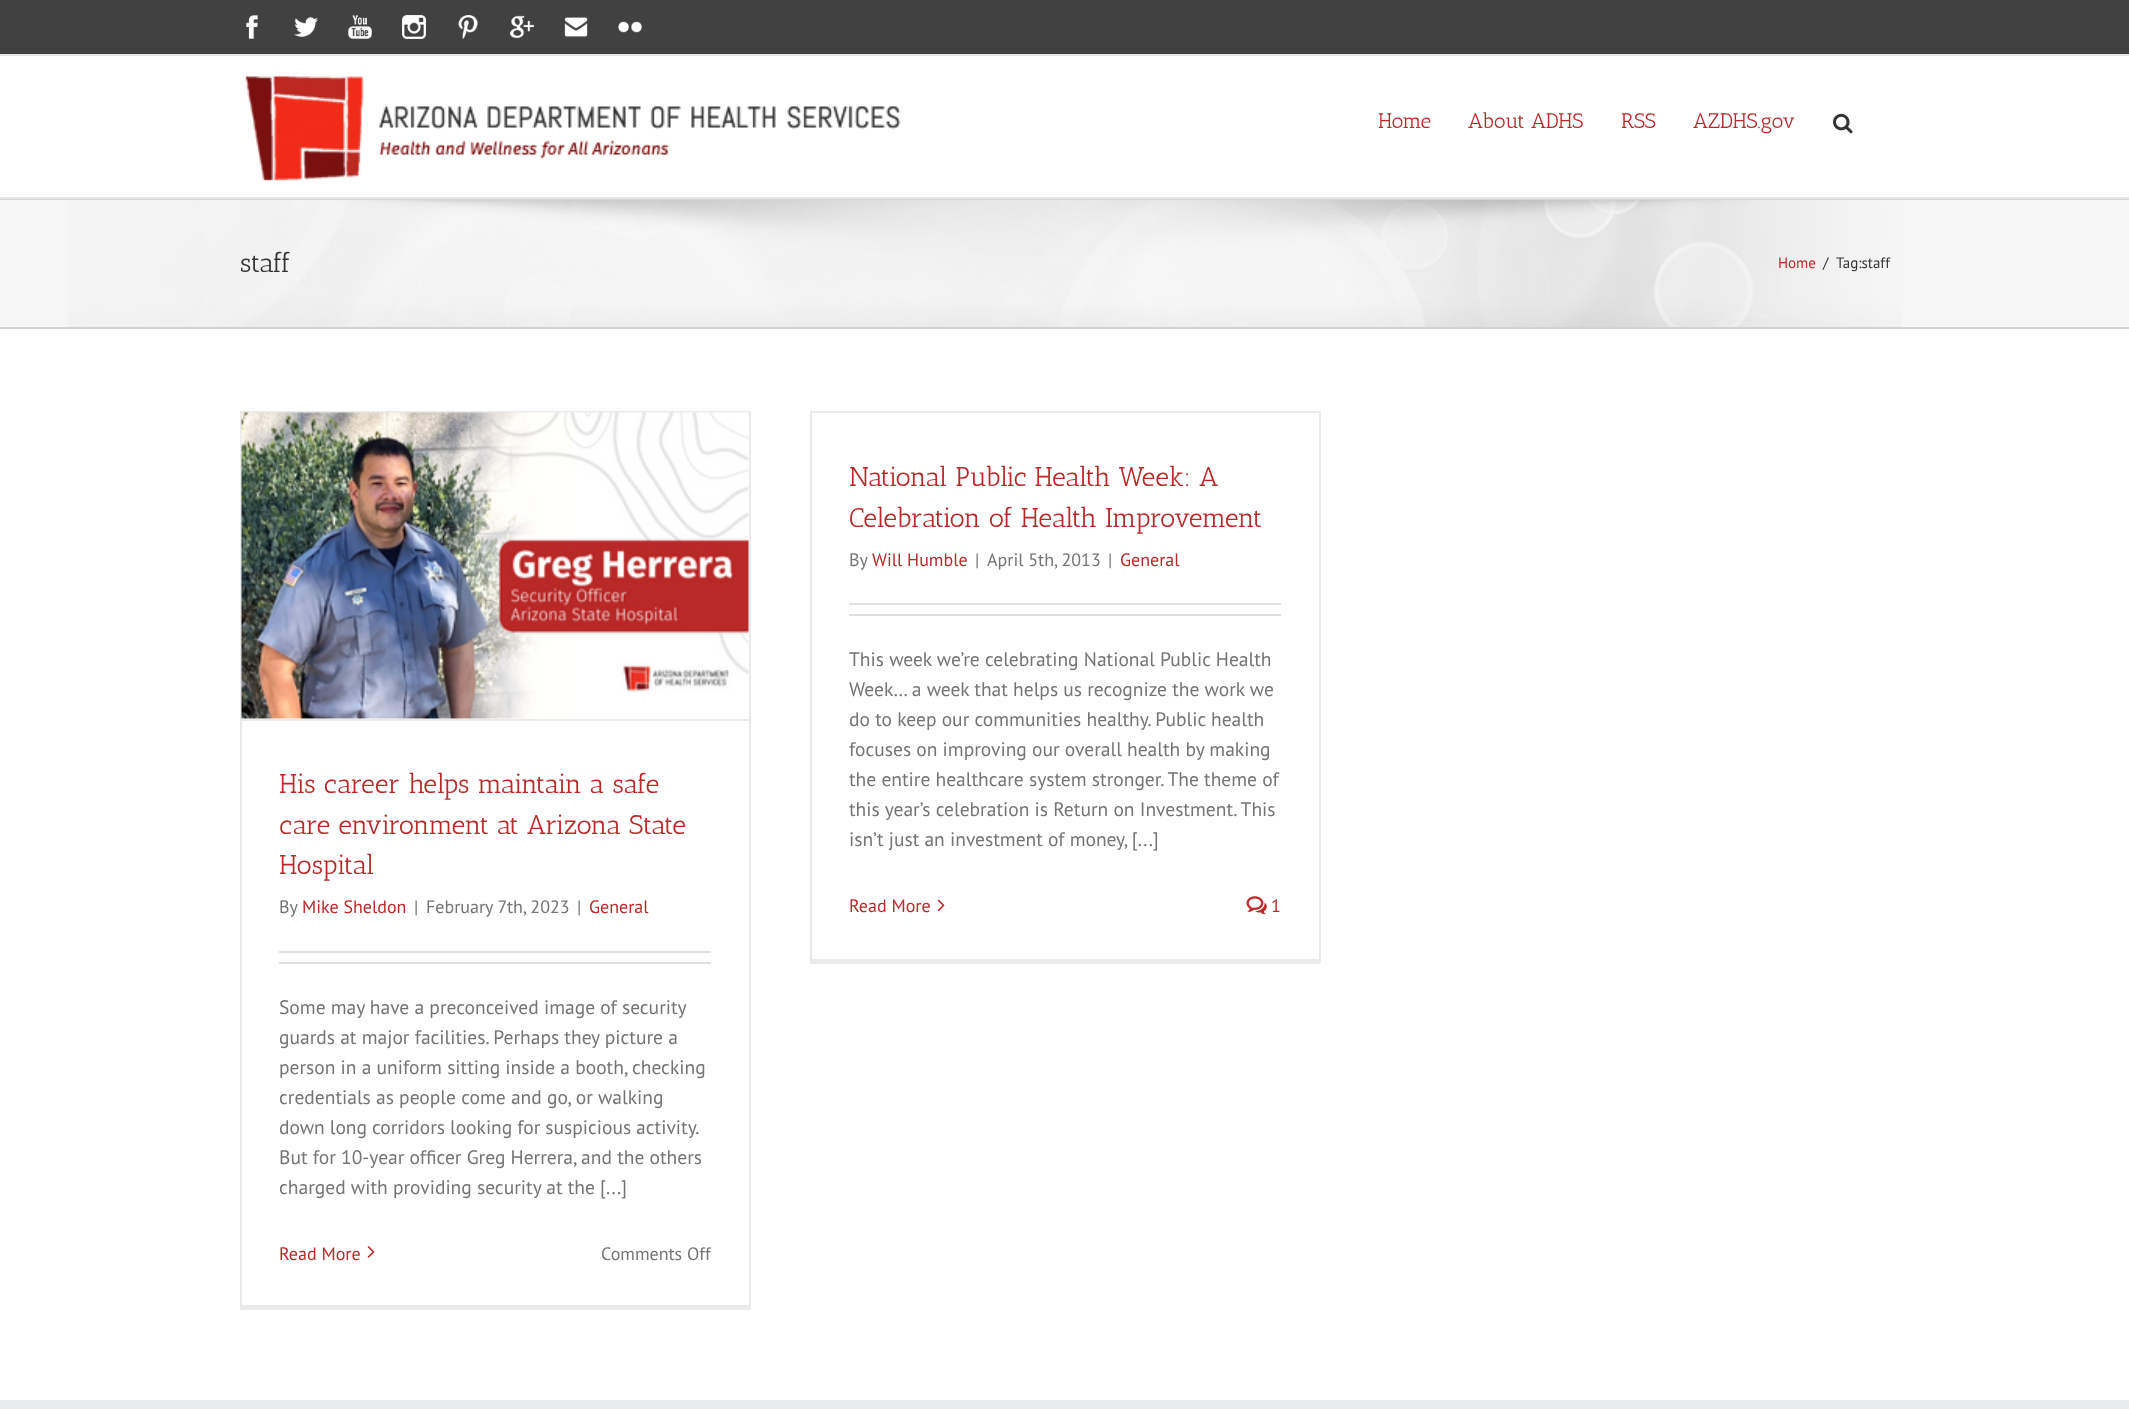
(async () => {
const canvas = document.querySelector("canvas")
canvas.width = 2129
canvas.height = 1409
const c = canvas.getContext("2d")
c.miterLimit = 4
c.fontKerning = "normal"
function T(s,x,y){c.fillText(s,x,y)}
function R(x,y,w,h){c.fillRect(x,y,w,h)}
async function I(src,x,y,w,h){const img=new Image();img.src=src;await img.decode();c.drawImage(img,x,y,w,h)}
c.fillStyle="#fff"
R(0,0,2129,1409)
c.fillStyle="#414141"
R(0,0,2129,54)
c.fillStyle="#e5e5e5"
R(0,54,2129,2)
await I("1.png",246,15,12,24)
await I("2.png",294,17,24,20)
await I("3.png",348,15,24,24)
await I("4.png",402,15,24,24)
await I("5.png",458,15,20,24)
await I("6.png",510,15,24,24)
await I("7.png",564,17,24,20)
await I("8.png",618,21,24,12)
R(0,197,2129,2)
await I("9.png",245,76,656,105)
c.font="21px Antic Slab"
c.fillStyle="#b92928"
T("Home",1378,128)
T("About ADHS",1468,128)
T("RSS",1621,128)
T("AZDHS.gov",1693,128)
await I("10.png",1833,113,20,21)
c.fillStyle="#f6f6f6"
R(0,200,2129,127)
await I("11.png",68,200,1833,127)
c.fillStyle="#d2d3d4"
R(0,199,2129,1)
R(0,327,2129,2)
c.font="27px Antic Slab"
c.fillStyle="#333"
T("staff",240,272)
c.font="15px PT Sans"
c.fillStyle="#b92928"
T("Home",1778,268)
c.fillStyle="#333"
T("/",1823,268)
T("Tag:staff",1836,268)
c.fillStyle="#ebeaea"
R(810,411,510,2)
R(1319,411,2,552)
R(810,959,510,5)
R(810,411,2,552)
c.font="27px Antic Slab"
c.fillStyle="#b92928"
T("National Public Health Week: A",849,486)
T("Celebration of Health Improvement",849,527)
c.font="18px PT Sans"
c.fillStyle="#747474"
T("By",849,566)
c.fillStyle="#b92928"
T("Will Humble",872,566)
c.fillStyle="#747474"
T("|",975,566)
T("April 5th, 2013",987,566)
T("|",1108,566)
c.fillStyle="#b92928"
T("General",1120,566)
c.fillStyle="#e0dede"
R(849,603,432,2)
R(849,614,432,2)
c.font="19.5px PT Sans"
c.fillStyle="#747474"
T("This week we’re celebrating National Public Health",849,666)
T("Week… a week that helps us recognize the work we",849,696)
T("do to keep our communities healthy. Public health",849,726)
T("focuses on improving our overall health by making",849,756)
T("the entire healthcare system stronger. The theme of",849,786)
T("this year’s celebration is Return on Investment. This",849,816)
T("isn’t just an investment of money, [...]",849,846)
c.font="18px PT Sans"
c.fillStyle="#b92928"
T("Read More",849,912)
await I("12.png",937,899,8,13)
await I("13.png",1246,896,21,19)
T("1",1271,912)
c.fillStyle="#ebeaea"
R(240,411,510,2)
R(749,411,2,899)
R(240,1305,510,5)
R(240,411,2,899)
R(242,719,507,2)
await I("14.png",241,412,508,307)
c.font="27px Antic Slab"
c.fillStyle="#b92928"
T("His career helps maintain a safe",279,793)
T("care environment at Arizona State",279,834)
T("Hospital",279,874)
c.font="18px PT Sans"
c.fillStyle="#747474"
T("By",279,913)
c.fillStyle="#b92928"
T("Mike Sheldon",302,913)
c.fillStyle="#747474"
T("|",414,913)
T("February 7th, 2023",426,913)
T("|",577,913)
c.fillStyle="#b92928"
T("General",589,913)
c.fillStyle="#e0dede"
R(279,951,432,2)
R(279,962,432,2)
c.font="19.5px PT Sans"
c.fillStyle="#747474"
T("Some may have a preconceived image of security",279,1014)
T("guards at major facilities. Perhaps they picture a",279,1044)
T("person in a uniform sitting inside a booth, checking",279,1074)
T("credentials as people come and go, or walking",279,1104)
c.wordSpacing="-0.25px"
T("down long corridors looking for suspicious activity.",279,1134)
c.wordSpacing="0px"
T("But for 10-year officer Greg Herrera, and the others",279,1164)
T("charged with providing security at the [...]",279,1194)
c.font="18px PT Sans"
c.fillStyle="#b92928"
T("Read More",279,1260)
await I("15.png",367,1246,8,12)
c.fillStyle="#747474"
T("Comments Off",601,1260)
c.fillStyle="#e9eaee"
R(0,1400,2129,9)
})()
